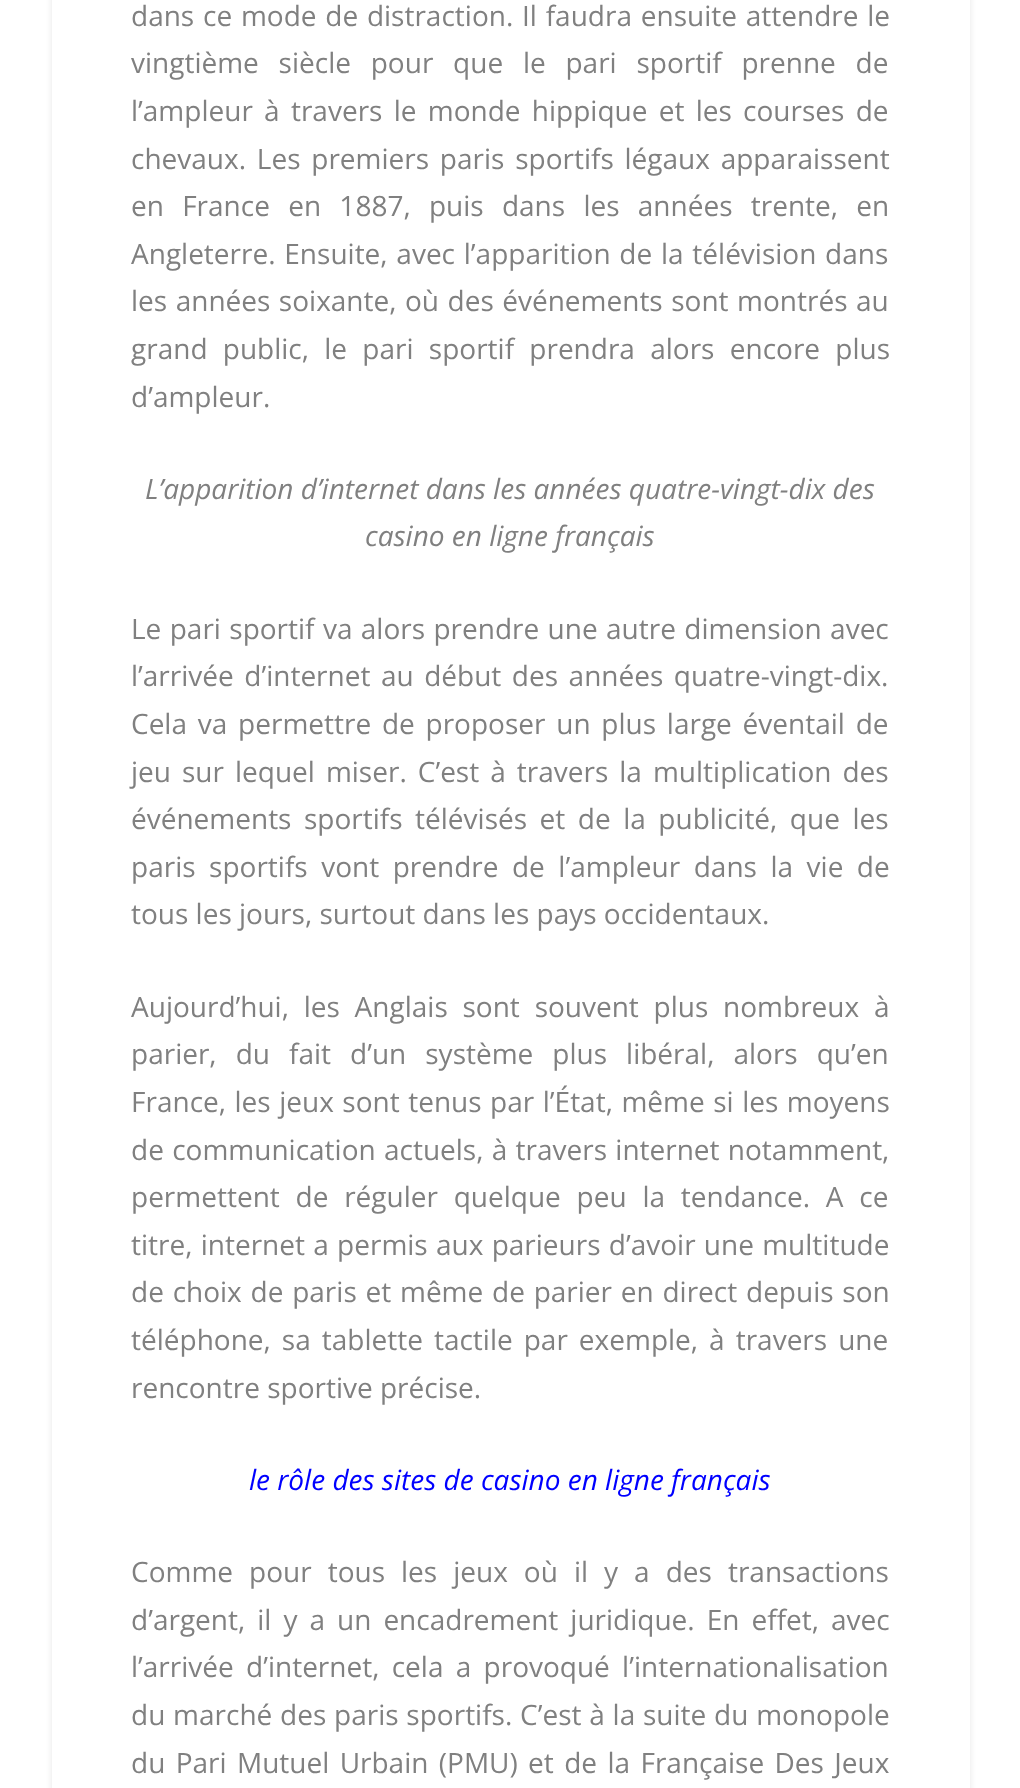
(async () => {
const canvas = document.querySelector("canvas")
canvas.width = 1020
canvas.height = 1788
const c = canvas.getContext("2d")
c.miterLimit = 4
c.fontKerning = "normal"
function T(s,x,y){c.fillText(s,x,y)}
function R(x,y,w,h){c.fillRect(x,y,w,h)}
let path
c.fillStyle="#fff"
R(0,0,1020,1788)
c.save()
path = new Path2D("M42 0h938v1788h-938zm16-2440h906c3.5 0 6 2.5 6 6v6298c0 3.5-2.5 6-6 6h-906c-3.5 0-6-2.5-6-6v-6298c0-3.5 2.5-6 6-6z")
c.clip(path,"evenodd")
c.fillStyle="#0000001a"
c.filter="blur(3px)"
c.beginPath()
c.roundRect(52,-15,918,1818,6)
c.fill()
c.filter="none"
c.restore()
c.wordSpacing="1.5px"
c.font="28px Open Sans"
c.fillStyle="#808080"
T("dans ce mode de distraction. Il faudra ensuite attendre le",131,26)
c.wordSpacing="12.5px"
T("vingtième siècle pour que le pari sportif prenne de",131,73)
c.wordSpacing="4px"
T("l’ampleur à travers le monde hippique et les courses de",131,121)
c.wordSpacing="3.5px"
T("chevaux. Les premiers paris sportifs légaux apparaissent",131,169)
c.wordSpacing="11px"
T("en France en 1887, puis dans les années trente, en",131,216)
c.wordSpacing="1.5px"
T("Angleterre. Ensuite, avec l’apparition de la télévision dans",131,264)
c.wordSpacing="1.25px"
T("les années soixante, où des événements sont montrés au",131,311)
c.wordSpacing="8px"
T("grand public, le pari sportif prendra alors encore plus",131,359)
c.wordSpacing="0px"
T("d’ampleur.",131,407)
c.font="italic 28px Open Sans"
T("L’apparition d’internet dans les années quatre-vingt-dix des",145,499)
T("casino en ligne français",365,546)
c.wordSpacing="1.1px"
c.font="28px Open Sans"
T("Le pari sportif va alors prendre une autre dimension avec",131,639)
c.wordSpacing="3.25px"
T("l’arrivée d’internet au début des années quatre-vingt-dix.",131,686)
c.wordSpacing="3.5px"
T("Cela va permettre de proposer un plus large éventail de",131,734)
c.wordSpacing="3.75px"
T("jeu sur lequel miser. C’est à travers la multiplication des",131,782)
c.wordSpacing="5.25px"
T("événements sportifs télévisés et de la publicité, que les",131,829)
c.wordSpacing="6.25px"
T("paris sportifs vont prendre de l’ampleur dans la vie de",131,877)
c.wordSpacing="0px"
T("tous les jours, surtout dans les pays occidentaux.",131,924)
c.wordSpacing="7.5px"
T("Aujourd’hui, les Anglais sont souvent plus nombreux à",131,1017)
c.wordSpacing="11.75px"
T("parier, du fait d’un système plus libéral, alors qu’en",131,1064)
c.wordSpacing="1.25px"
T("France, les jeux sont tenus par l’État, même si les moyens",131,1112)
c.wordSpacing="1px"
T("de communication actuels, à travers internet notamment,",131,1160)
c.wordSpacing="8.5px"
T("permettent de réguler quelque peu la tendance. A ce",131,1207)
c.wordSpacing="1px"
T("titre, internet a permis aux parieurs d’avoir une multitude",131,1255)
c.wordSpacing="1.5px"
T("de choix de paris et même de parier en direct depuis son",131,1302)
c.wordSpacing="3.75px"
T("téléphone, sa tablette tactile par exemple, à travers une",131,1350)
c.wordSpacing="0px"
T("rencontre sportive précise.",131,1398)
c.font="italic 28px Open Sans"
c.fillStyle="#00f"
T("le rôle des sites de casino en ligne français",249,1490)
c.wordSpacing="8.75px"
c.font="28px Open Sans"
c.fillStyle="#808080"
T("Comme pour tous les jeux où il y a des transactions",131,1582)
c.wordSpacing="4.75px"
T("d’argent, il y a un encadrement juridique. En effet, avec",131,1630)
c.wordSpacing="5px"
T("l’arrivée d’internet, cela a provoqué l’internationalisation",131,1677)
c.wordSpacing="0.5px"
T("du marché des paris sportifs. C’est à la suite du monopole",131,1725)
c.wordSpacing="3.1px"
T("du Pari Mutuel Urbain (PMU) et de la Française Des Jeux",131,1773)
})()
